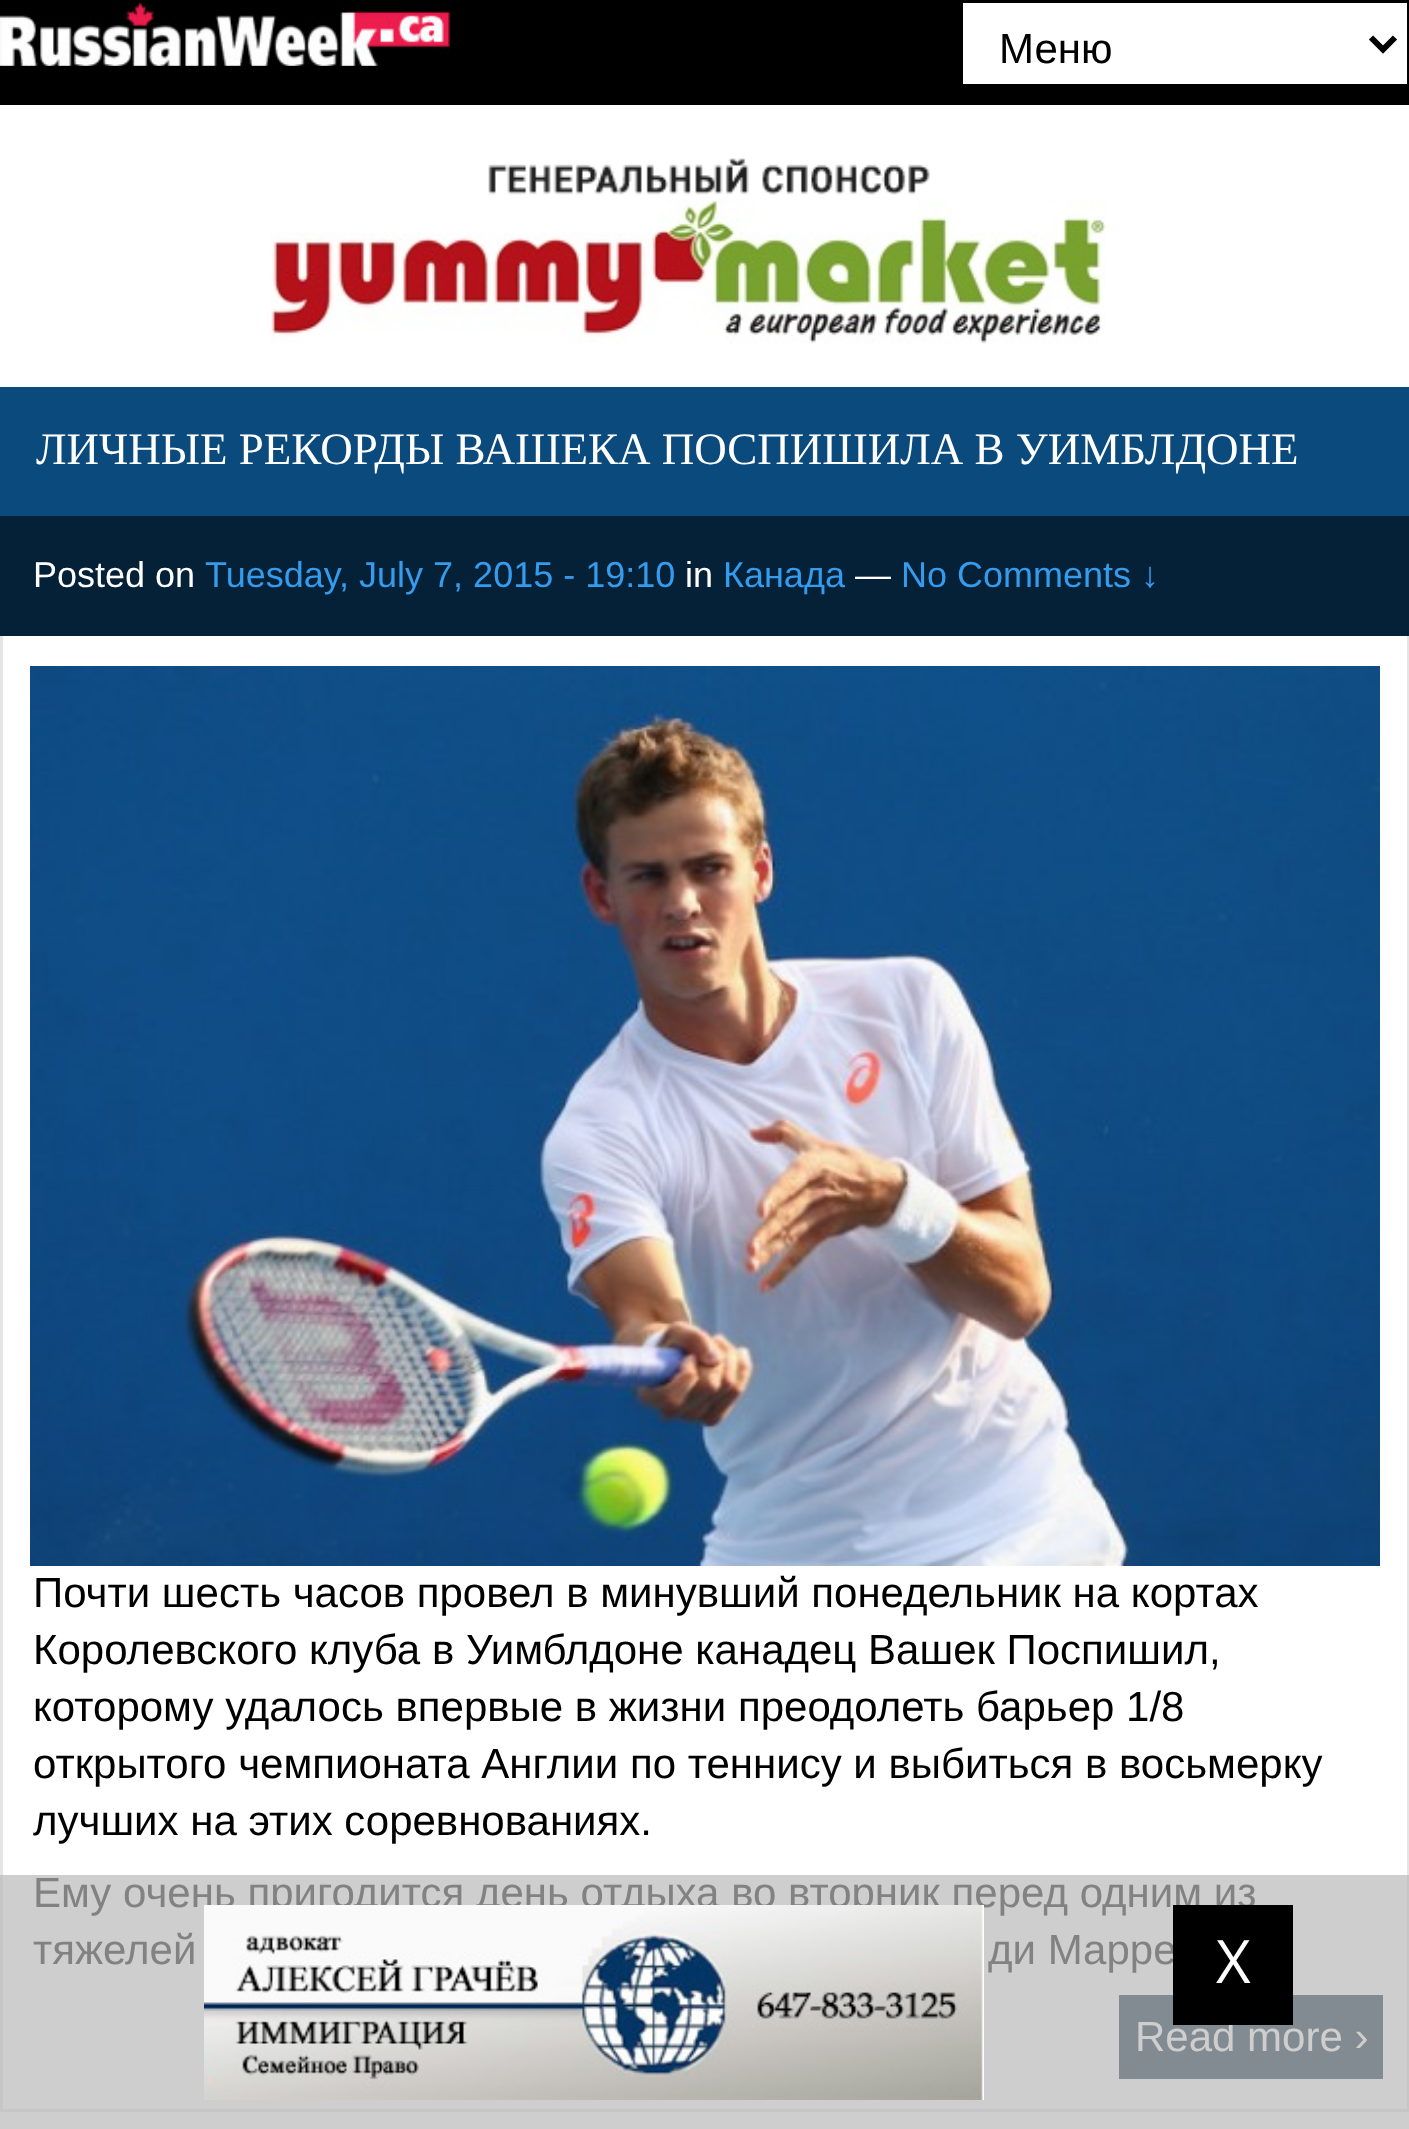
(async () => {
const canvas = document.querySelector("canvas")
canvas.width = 1409
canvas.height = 2129
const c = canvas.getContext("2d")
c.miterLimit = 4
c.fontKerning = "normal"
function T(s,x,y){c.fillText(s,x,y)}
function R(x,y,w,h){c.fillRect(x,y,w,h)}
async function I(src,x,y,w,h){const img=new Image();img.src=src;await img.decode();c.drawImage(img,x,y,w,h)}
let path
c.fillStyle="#fff"
R(0,0,1409,2129)
c.fillStyle="#cecece"
R(0,1875,1409,254)
c.fillStyle="#000"
R(0,0,1409,105)
await I("1.png",0,3,450,63)
c.fillStyle="#fff"
R(963,3,444,81)
path = new Path2D("M1371 37.5l12 12l12-12")
c.strokeStyle="#000"
c.lineWidth=6
c.stroke(path)
c.font="42px Liberation Sans"
c.fillStyle="#000"
T("Меню",999,63)
await I("2.png",270,158,836,186)
c.fillStyle="#0b4a7d"
R(0,387,1409,129)
c.font="45px Liberation Serif"
c.fillStyle="#fff"
T("ЛИЧНЫЕ РЕКОРДЫ ВАШЕКА ПОСПИШИЛА В УИМБЛДОНЕ",36,464)
c.fillStyle="#052137"
R(0,516,1409,120)
c.font="36px Liberation Sans"
c.fillStyle="#fff"
T("Posted on",33,587)
c.fillStyle="#359bed"
T("Tuesday, July 7, 2015 - 19:10",205,587)
c.fillStyle="#fff"
T("in",685,587)
c.fillStyle="#359bed"
T("Канада",723,587)
c.fillStyle="#fff"
T("—",855,587)
c.fillStyle="#359bed"
T("No Comments ↓",901,587)
c.fillStyle="#e5e5e5"
R(1407,636,2,1239)
c.fillStyle="#c6c6c6"
R(1407,1875,2,237)
R(0,2109,1409,3)
c.fillStyle="#e5e5e5"
R(0,636,3,1239)
c.fillStyle="#c6c6c6"
R(0,1875,3,237)
await I("3.png",30,666,1350,900)
c.font="42px Liberation Sans"
c.fillStyle="#000"
T("Почти шесть часов провел в минувший понедельник на кортах",33,1607)
T("Королевского клуба в Уимблдоне канадец Вашек Поспишил,",33,1664)
T("которому удалось впервые в жизни преодолеть барьер 1/8",33,1721)
T("открытого чемпионата Англии по теннису и выбиться в восьмерку",33,1778)
T("лучших на этих соревнованиях.",33,1835)
c.fillStyle="#828282"
T("Ему очень пригодится день отдыха во вторник перед одним из",33,1907)
T("тяжелей",33,1964)
T("ди Марре",988,1964)
c.fillStyle="#838b92"
R(1119,1995,264,84)
c.fillStyle="#cecece"
T("Read more ›",1135,2051)
await I("4.png",204,1905,780,195)
c.fillStyle="#000"
R(1173,1905,120,120)
c.font="60px Open Sans"
c.fillStyle="#fff"
T("X",1216,1983)
})()
